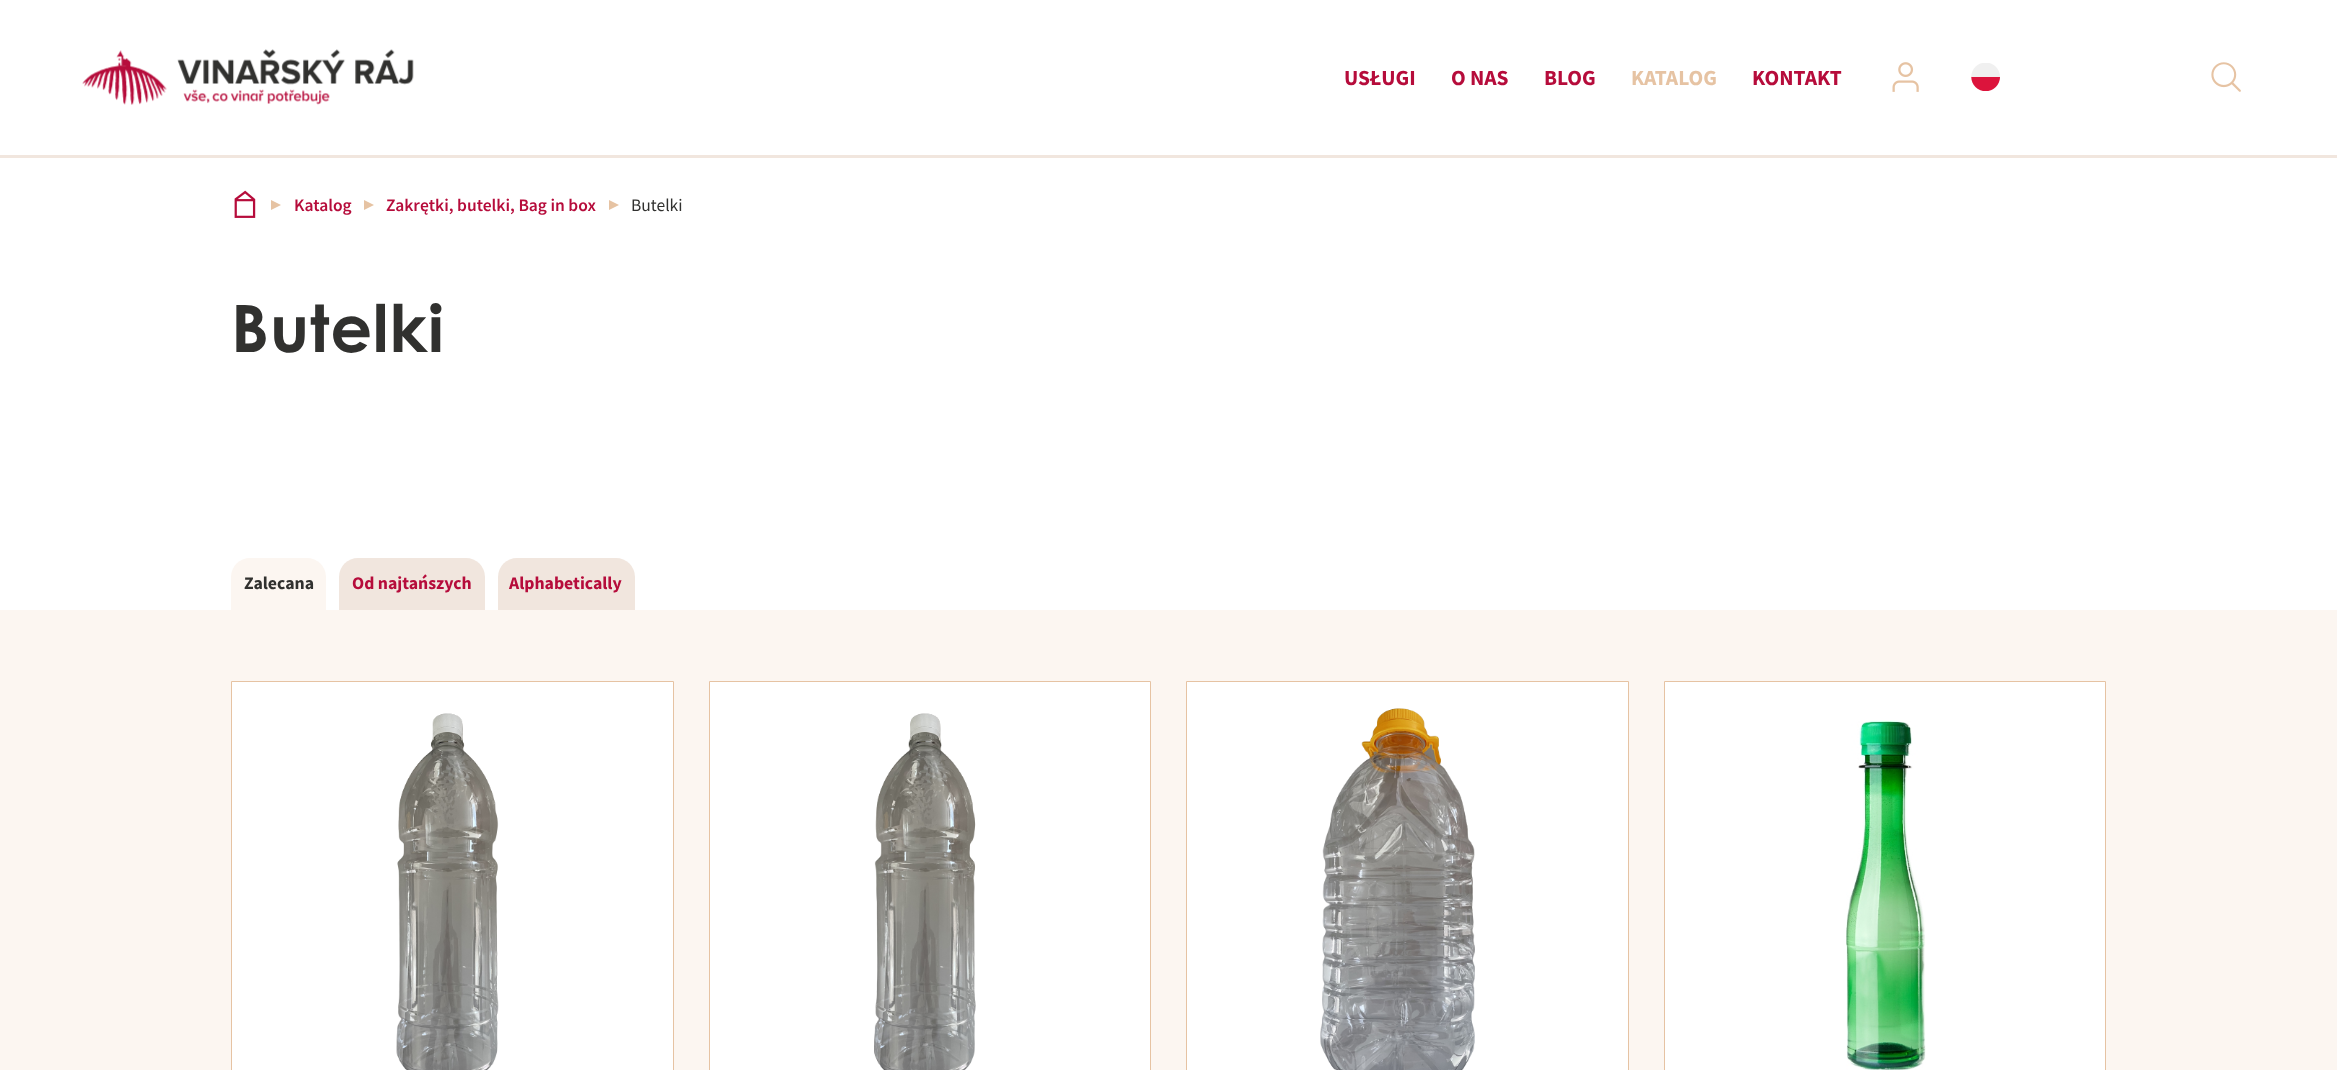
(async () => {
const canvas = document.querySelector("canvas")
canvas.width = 2337
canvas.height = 1070
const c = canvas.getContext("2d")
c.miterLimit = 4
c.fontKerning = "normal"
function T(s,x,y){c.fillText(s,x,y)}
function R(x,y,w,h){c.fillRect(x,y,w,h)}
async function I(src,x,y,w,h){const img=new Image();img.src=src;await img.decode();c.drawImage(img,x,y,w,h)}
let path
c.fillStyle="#fff"
R(0,0,2337,1070)
c.fillStyle="#f1e6de"
R(0,155,2337,3)
await I("1.png",82,49,332,56)
c.font="bold 21.5px Source Sans Pro"
c.fillStyle="#b60c3b"
T("USŁUGI",1344,85)
T("O NAS",1451,85)
T("BLOG",1544,85)
c.fillStyle="#e6c3a3"
T("KATALOG",1631,85)
c.fillStyle="#b60c3b"
T("KONTAKT",1752,85)
await I("2.png",1892,62,27,30)
await I("3.png",1971,63,29,28)
await I("4.png",2211,62,30,30)
await I("5.png",234,190,22,28)
c.fillStyle="#e6c3a3"
path = new Path2D("M271 210v-10l10 5z")
c.fill(path)
c.font="600 17.5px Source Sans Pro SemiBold"
c.fillStyle="#b60c3b"
T("Katalog",294,211)
c.fillStyle="#e6c3a3"
path = new Path2D("M364 210v-10l10 5z")
c.fill(path)
c.fillStyle="#b60c3b"
T("Zakrętki, butelki, Bag in box",386,211)
c.fillStyle="#e6c3a3"
path = new Path2D("M609 210v-10l10 5z")
c.fill(path)
c.font="17.5px Source Sans Pro"
c.fillStyle="#31312f"
T("Butelki",631,211)
c.letterSpacing="0.75px"
c.font="bold 65.5px Century Gothic"
T("Butelki",231,352)
c.fillStyle="#fcf6f1"
c.beginPath()
c.roundRect(231,558,95,52,[19,19,0,0])
c.fill()
c.letterSpacing="0px"
c.font="bold 17.75px Source Sans Pro"
c.fillStyle="#31312f"
T("Zalecana",244,589)
c.fillStyle="#f1e6de"
c.beginPath()
c.roundRect(339,558,146,52,[19,19,0,0])
c.fill()
c.fillStyle="#b60c3b"
T("Od najtańszych",352,589)
c.fillStyle="#f1e6de"
c.beginPath()
c.roundRect(498,558,137,52,[19,19,0,0])
c.fill()
c.fillStyle="#b60c3b"
T("Alphabetically",509,589)
c.fillStyle="#fcf6f1"
R(0,610,2337,460)
c.fillStyle="#fff"
c.beginPath()
c.rect(231.5,681.5,442,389)
c.fill()
c.strokeStyle="#e6c3a3"
c.stroke()
await I("6.png",396,713,103,357)
c.beginPath()
c.rect(709.5,681.5,441,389)
c.fill()
c.stroke()
await I("7.png",874,713,102,357)
c.beginPath()
c.rect(1186.5,681.5,442,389)
c.fill()
c.stroke()
await I("8.png",1320,708,155,362)
c.beginPath()
c.rect(1664.5,681.5,441,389)
c.fill()
c.stroke()
await I("9.png",1846,720,80,350)
})()
